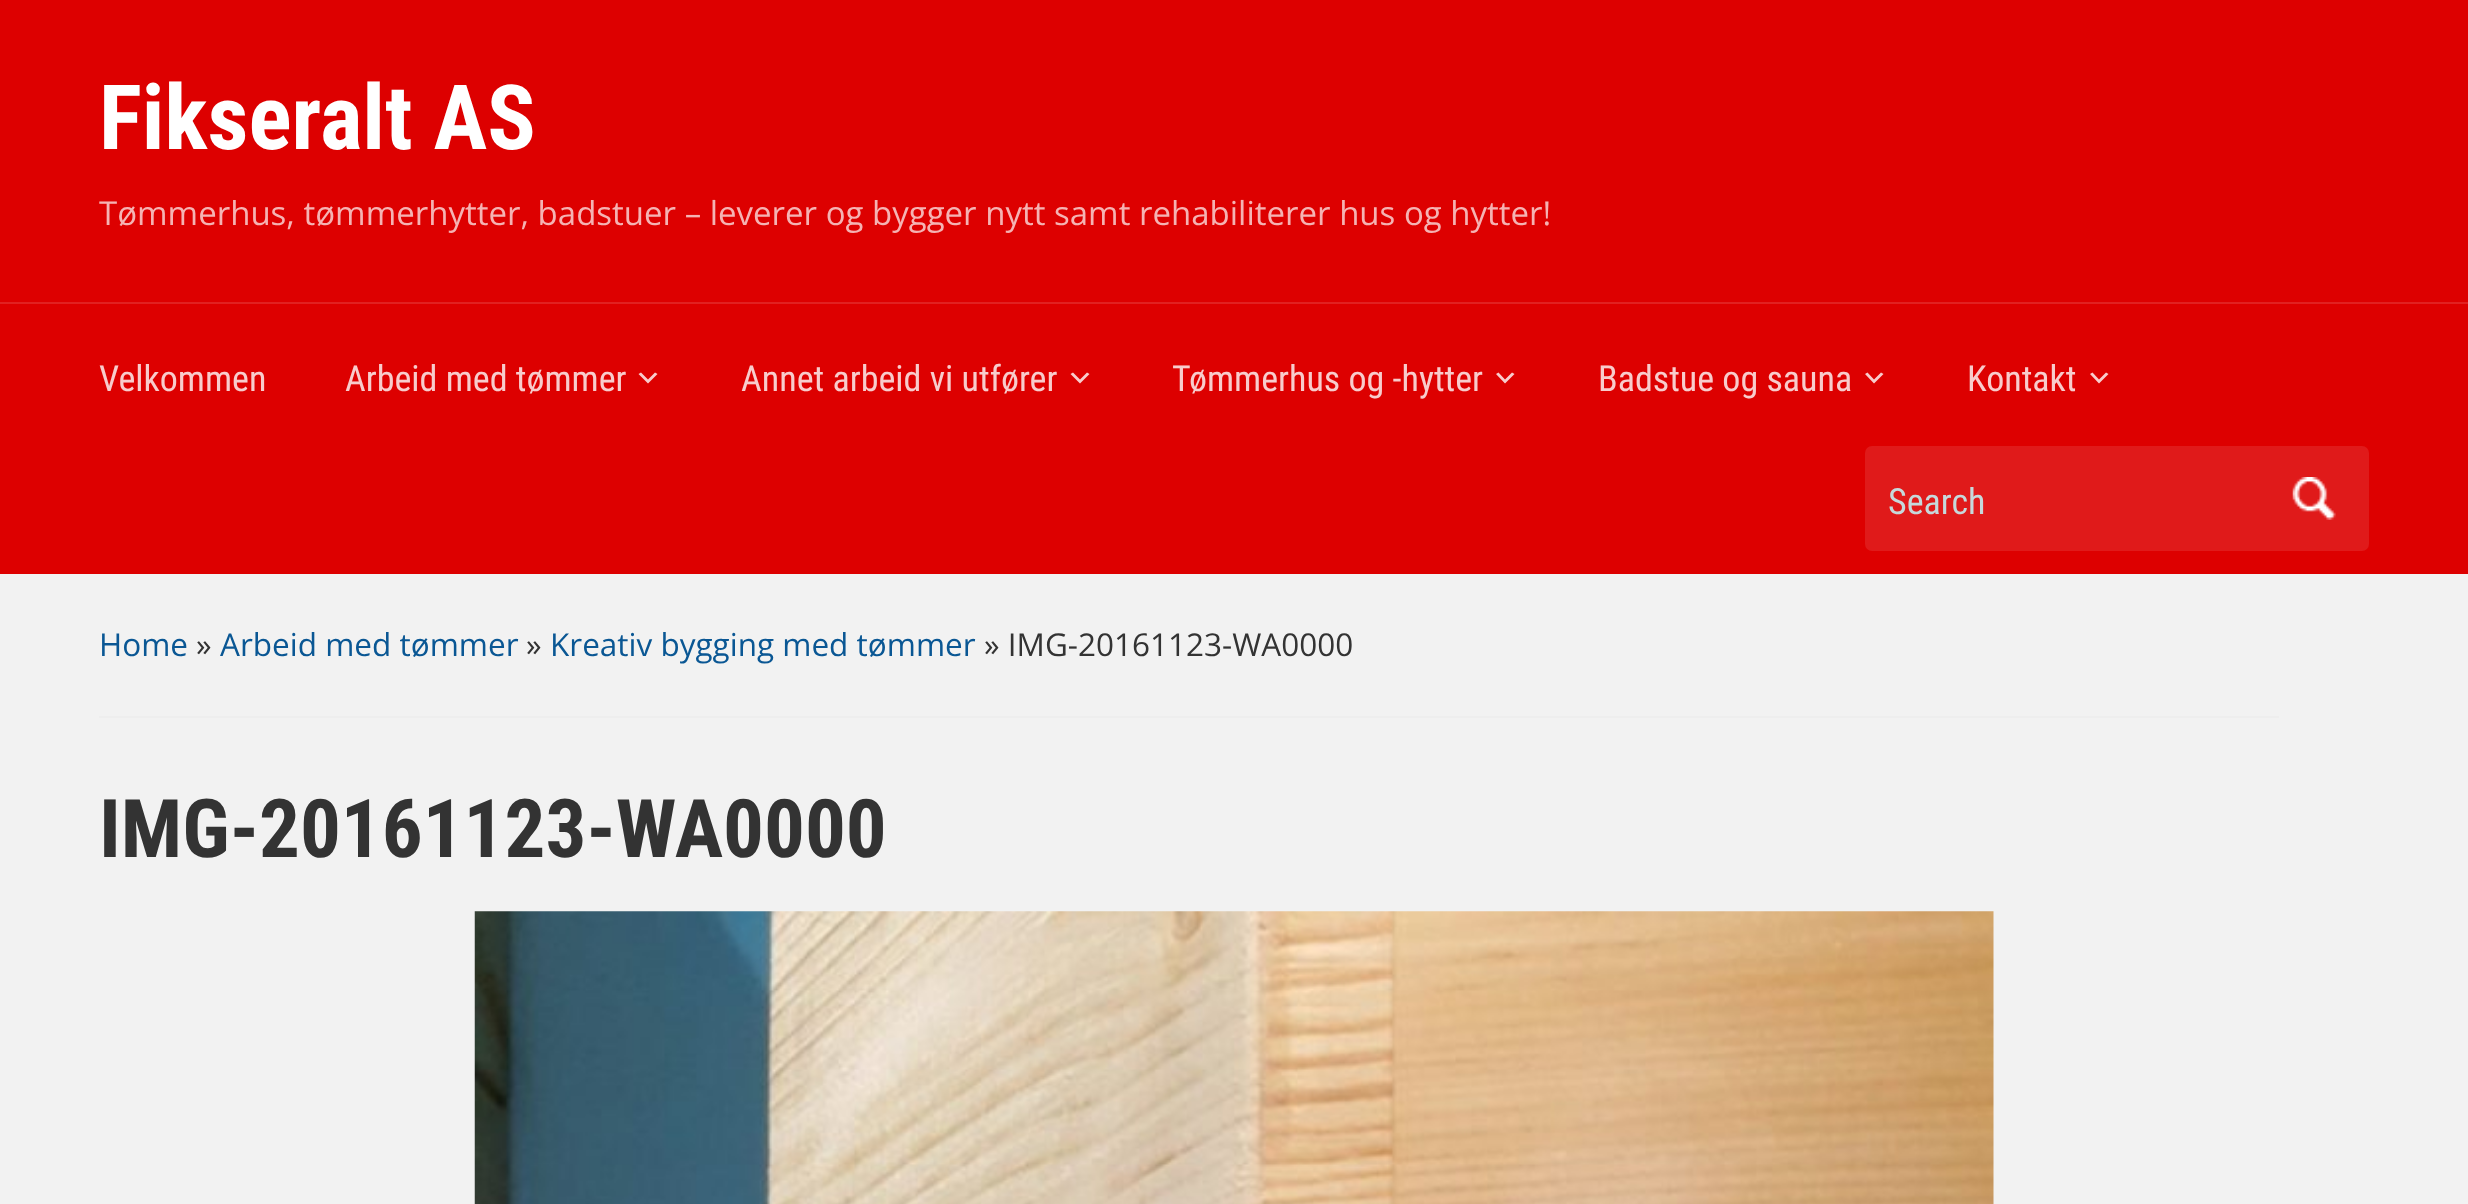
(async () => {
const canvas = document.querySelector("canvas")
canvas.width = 2468
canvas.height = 1204
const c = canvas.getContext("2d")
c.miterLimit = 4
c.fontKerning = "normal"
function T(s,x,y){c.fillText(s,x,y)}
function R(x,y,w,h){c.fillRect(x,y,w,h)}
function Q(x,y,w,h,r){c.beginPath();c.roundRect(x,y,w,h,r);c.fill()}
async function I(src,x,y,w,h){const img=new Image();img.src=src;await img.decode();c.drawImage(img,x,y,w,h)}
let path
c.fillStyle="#f2f2f2"
R(0,0,2468,1204)
c.fillStyle="#d00"
R(0,0,2468,574)
c.font="bold 90px Roboto Condensed"
c.fillStyle="#fff"
T("Fikseralt AS",99,149)
c.font="33px Open Sans"
c.fillStyle="#f5b3b3"
T("Tømmerhus, tømmerhytter, badstuer – leverer og bygger nytt samt rehabiliterer hus og hytter!",99,225)
c.fillStyle="#e12121"
R(0,302,2468,2)
c.font="36px Roboto Condensed"
c.fillStyle="#f8cccc"
T("Velkommen",99,391)
T("Arbeid med tømmer",345,391)
path = new Path2D("M641 372.5l7 7l7-7l2.5 1.5l-9.5 9.5l-9.5-9.5z")
c.fill(path)
T("Annet arbeid vi utfører",741,391)
path = new Path2D("M1073 372.5l7 7l7-7l2.5 1.5l-9.5 9.5l-9.5-9.5z")
c.fill(path)
T("Tømmerhus og -hytter",1172,391)
path = new Path2D("M1498.5 372.5l6.5 7l7-7l2.5 1.5l-9.5 9.5l-9-9.5z")
c.fill(path)
T("Badstue og sauna",1598,391)
path = new Path2D("M1867.5 372.5l6.5 7l7-7l2.5 1.5l-9.5 9.5l-9-9.5z")
c.fill(path)
T("Kontakt",1967,391)
path = new Path2D("M2092.5 372.5l6.5 7l7-7l2.5 1.5l-9.5 9.5l-9-9.5z")
c.fill(path)
c.fillStyle="#e01a1a"
Q(1865,446,504,105,7)
c.fillStyle="#c6d9db"
T("Search",1888,514)
await I("1.png",2292,477,44,43)
c.fillStyle="#eee"
R(99,716,2180,2)
c.font="31.5px Open Sans"
c.fillStyle="#0a5794"
T("Home",99,656)
c.fillStyle="#333"
T("»",196,656)
c.fillStyle="#0a5794"
T("Arbeid med tømmer",220,656)
c.fillStyle="#333"
T("»",526,656)
c.fillStyle="#0a5794"
T("Kreativ bygging med tømmer",550,656)
c.fillStyle="#333"
T("» IMG-20161123-WA0000",984,656)
c.font="bold 81px Roboto Condensed"
T("IMG-20161123-WA0000",99,857)
await I("2.png",474,911,1520,293)
})()
